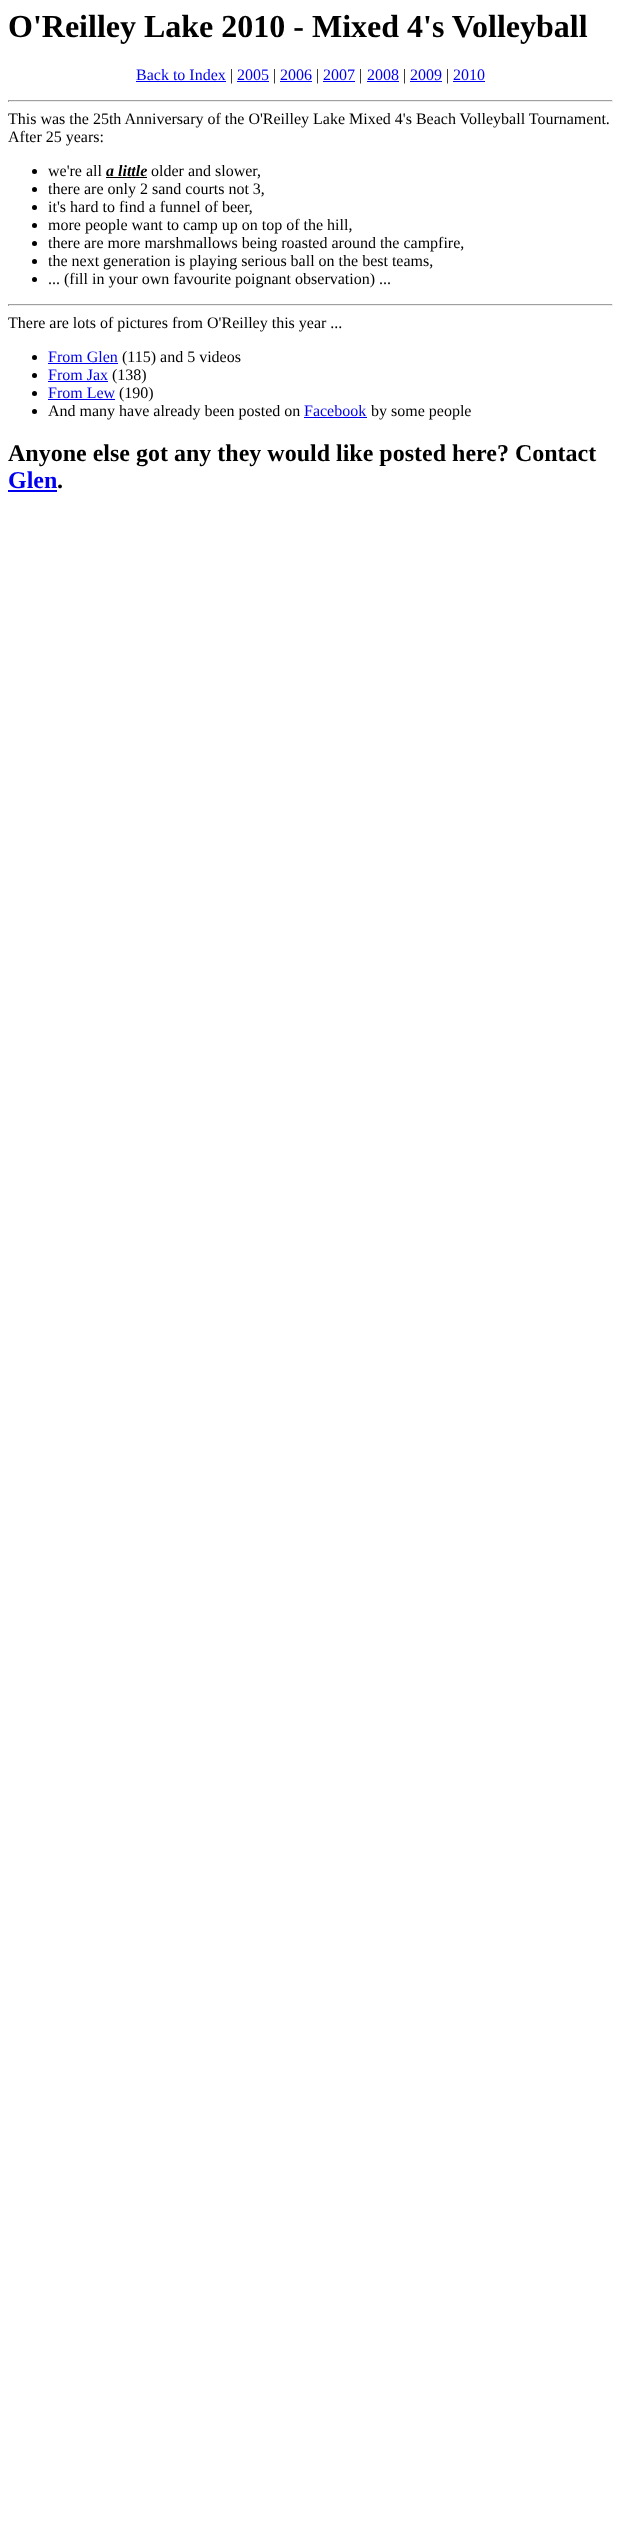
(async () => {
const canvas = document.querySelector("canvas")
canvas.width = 621
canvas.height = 2525
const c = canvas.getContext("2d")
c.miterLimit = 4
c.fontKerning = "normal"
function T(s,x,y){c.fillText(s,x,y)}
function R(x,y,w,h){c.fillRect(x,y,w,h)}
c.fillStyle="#fff"
R(0,0,621,2525)
c.font="bold 32px Liberation Serif"
c.fillStyle="#000"
T("O'Reilley Lake 2010 - Mixed 4's Volleyball",8,37)
c.font="16px Liberation Serif"
c.fillStyle="#00e"
T("Back to Index",136,80)
R(136,81,90,1)
c.fillStyle="#000"
T("|",230,80)
c.fillStyle="#00e"
T("2005",237,80)
R(237,81,32,1)
c.fillStyle="#000"
T("|",273,80)
c.fillStyle="#00e"
T("2006",280,80)
R(280,81,32,1)
c.fillStyle="#000"
T("|",316,80)
c.fillStyle="#00e"
T("2007",323,80)
R(323,81,32,1)
c.fillStyle="#000"
T("|",359,80)
c.fillStyle="#00e"
T("2008",367,80)
R(367,81,32,1)
c.fillStyle="#000"
T("|",403,80)
c.fillStyle="#00e"
T("2009",410,80)
R(410,81,32,1)
c.fillStyle="#000"
T("|",446,80)
c.fillStyle="#00e"
T("2010",453,80)
R(453,81,32,1)
c.fillStyle="#9f9f9f"
R(8,100,605,1)
c.fillStyle="#eee"
R(612,100,1,2)
R(8,101,605,1)
c.fillStyle="#9f9f9f"
R(8,100,1,2)
c.fillStyle="#000"
T("This was the 25th Anniversary of the O'Reilley Lake Mixed 4's Beach Volleyball Tournament.",8,124)
T("After 25 years:",8,142)
c.beginPath()
c.arc(34.5,171.5,2.5,0,7)
c.fill()
T("we're all",48,176)
c.font="italic bold 16px Liberation Serif"
T("a little",106,176)
R(106,177,41,1)
c.font="16px Liberation Serif"
T("older and slower,",151,176)
c.beginPath()
c.arc(34.5,189.5,2.5,0,7)
c.fill()
T("there are only 2 sand courts not 3,",48,194)
c.beginPath()
c.arc(34.5,207.5,2.5,0,7)
c.fill()
T("it's hard to find a funnel of beer,",48,212)
c.beginPath()
c.arc(34.5,225.5,2.5,0,7)
c.fill()
T("more people want to camp up on top of the hill,",48,230)
c.beginPath()
c.arc(34.5,243.5,2.5,0,7)
c.fill()
T("there are more marshmallows being roasted around the campfire,",48,248)
c.beginPath()
c.arc(34.5,261.5,2.5,0,7)
c.fill()
T("the next generation is playing serious ball on the best teams,",48,266)
c.beginPath()
c.arc(34.5,279.5,2.5,0,7)
c.fill()
T("... (fill in your own favourite poignant observation) ...",48,284)
c.fillStyle="#9f9f9f"
R(8,304,605,1)
c.fillStyle="#eee"
R(612,304,1,2)
R(8,305,605,1)
c.fillStyle="#9f9f9f"
R(8,304,1,2)
c.fillStyle="#000"
T("There are lots of pictures from O'Reilley this year ...",8,328)
c.beginPath()
c.arc(34.5,357.5,2.5,0,7)
c.fill()
c.fillStyle="#00e"
T("From Glen",48,362)
R(48,363,70,1)
c.fillStyle="#000"
T("(115) and 5 videos",122,362)
c.beginPath()
c.arc(34.5,375.5,2.5,0,7)
c.fill()
c.fillStyle="#00e"
T("From Jax",48,380)
R(48,381,60,1)
c.fillStyle="#000"
T("(138)",112,380)
c.beginPath()
c.arc(34.5,393.5,2.5,0,7)
c.fill()
c.fillStyle="#00e"
T("From Lew",48,398)
R(48,399,67,1)
c.fillStyle="#000"
T("(190)",119,398)
c.beginPath()
c.arc(34.5,411.5,2.5,0,7)
c.fill()
T("And many have already been posted on",48,416)
c.fillStyle="#00e"
T("Facebook",304,416)
R(304,417,63,1)
c.fillStyle="#000"
T("by some people",371,416)
c.font="bold 24px Liberation Serif"
T("Anyone else got any they would like posted here? Contact",8,461)
c.fillStyle="#00e"
T("Glen",8,488)
R(8,490,49,2)
c.fillStyle="#000"
T(".",57,488)
})()
